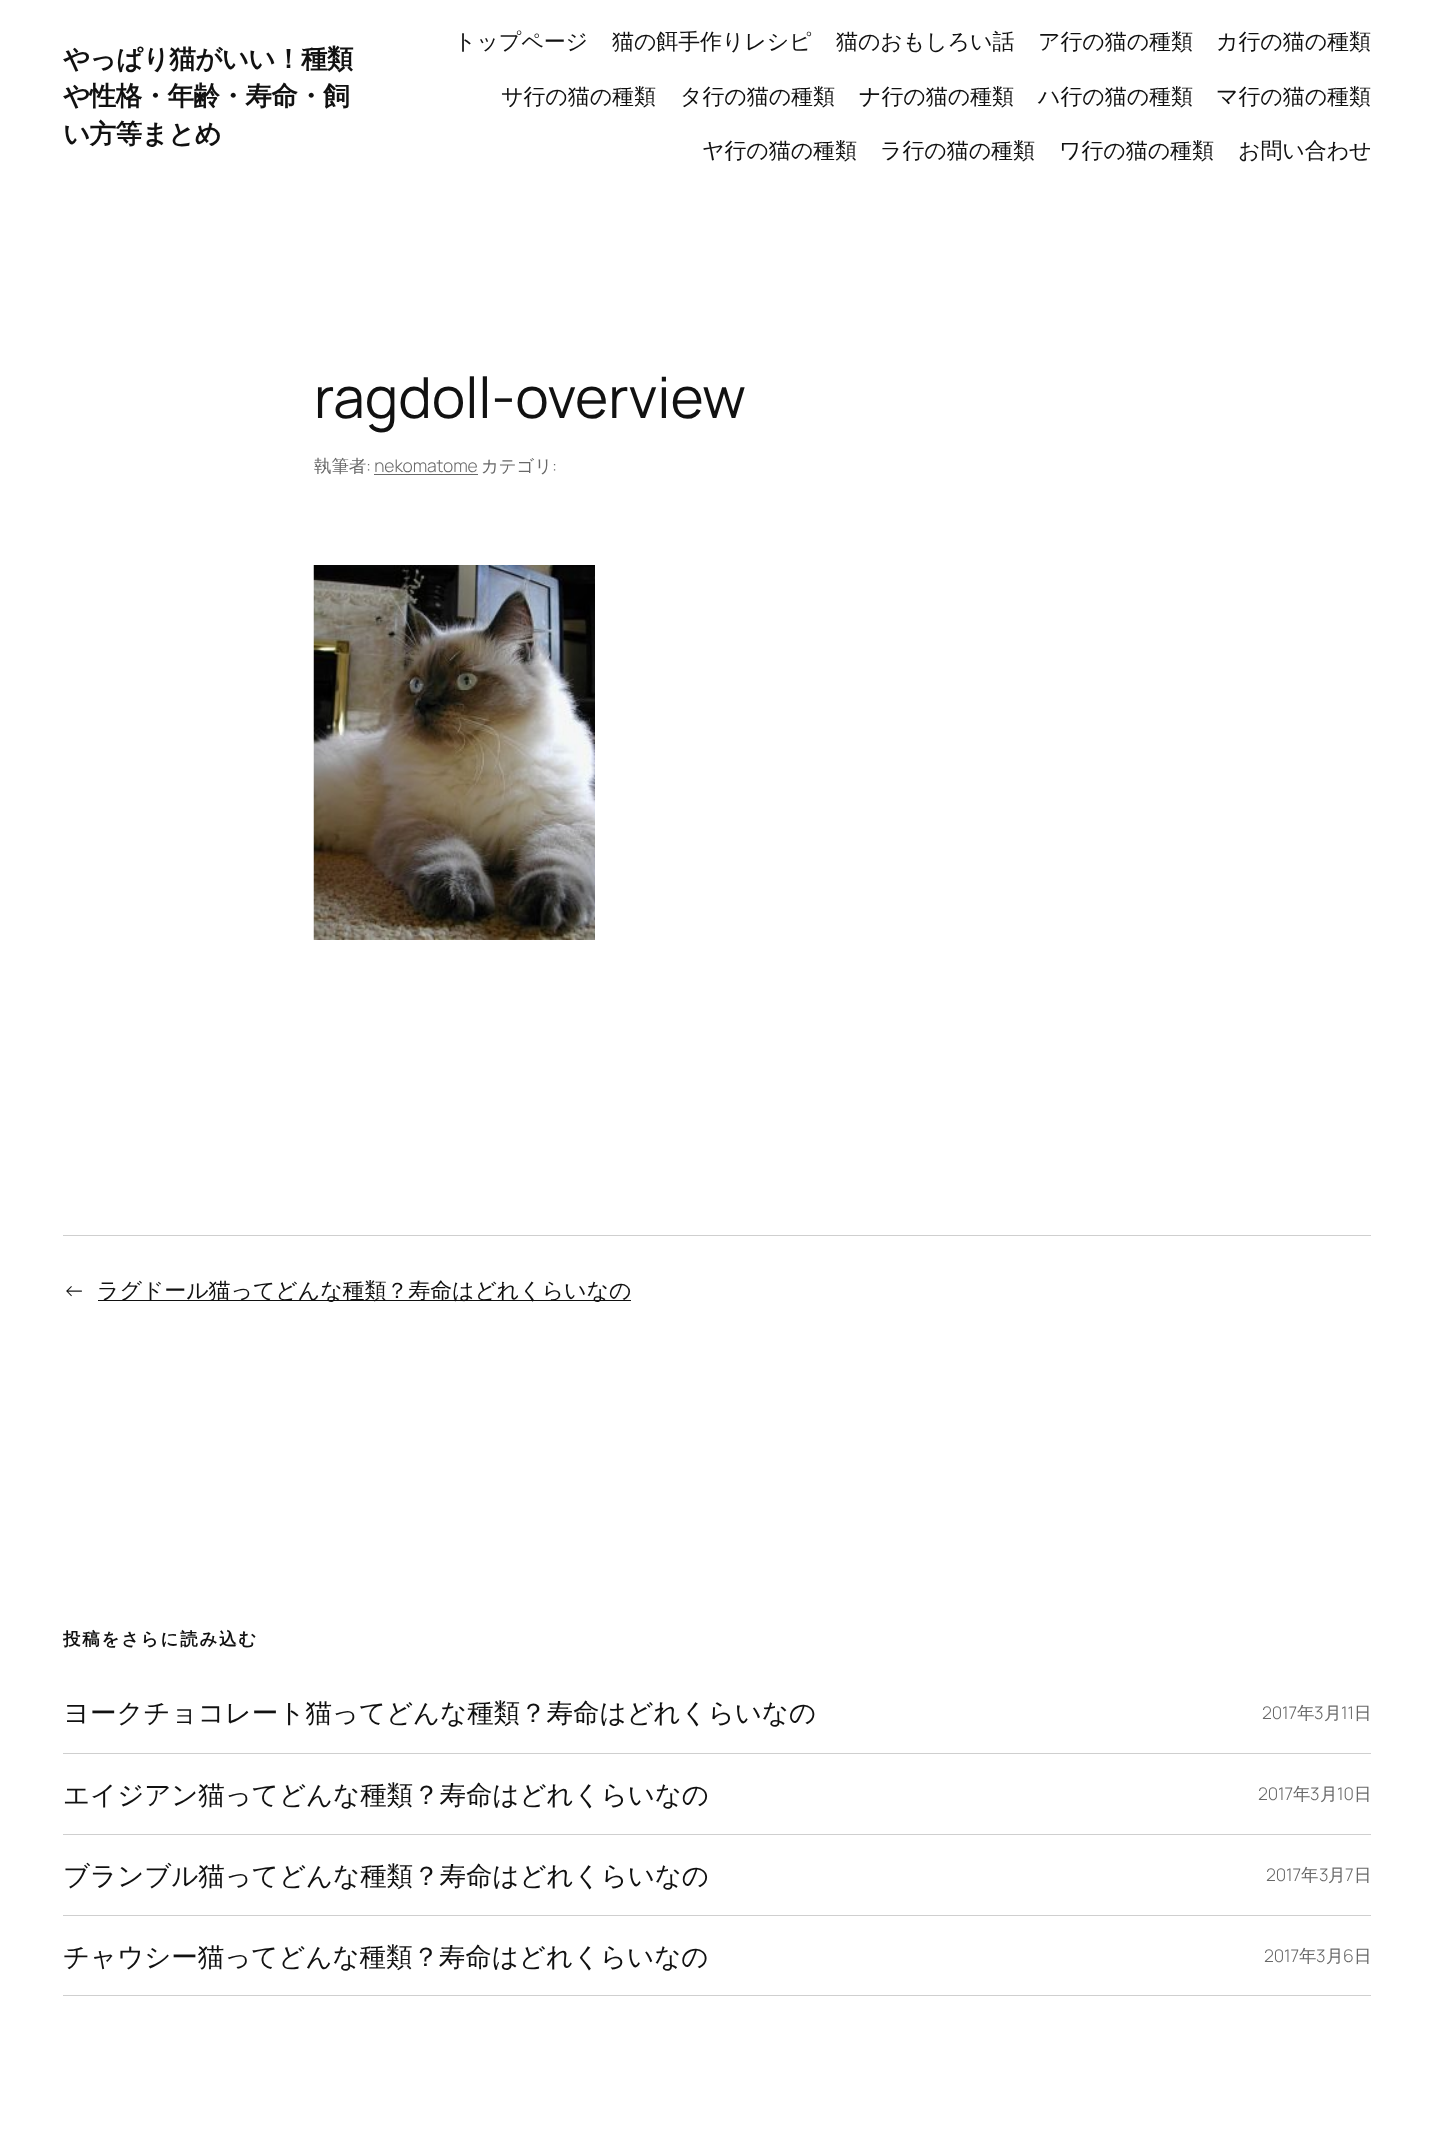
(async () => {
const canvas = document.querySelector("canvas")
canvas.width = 1433
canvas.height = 2152
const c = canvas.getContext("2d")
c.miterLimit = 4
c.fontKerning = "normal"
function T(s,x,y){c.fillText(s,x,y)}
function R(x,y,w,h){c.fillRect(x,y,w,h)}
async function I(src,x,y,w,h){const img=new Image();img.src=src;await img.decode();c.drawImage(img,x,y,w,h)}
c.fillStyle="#fff"
R(0,0,1433,2152)
c.letterSpacing="-0.6px"
c.font="bold 26.55px WenQuanYi Zen Hei"
c.fillStyle="#111"
T("やっぱり猫がいい！種類",63,68)
T("や性格・年齢・寿命・飼",63,105)
T("い方等まとめ",63,143)
c.letterSpacing="-0.1px"
c.font="500 22px WenQuanYi Zen Hei"
T("トップページ",454,49)
T("猫の餌手作りレシピ",612,49)
T("猫のおもしろい話",836,49)
T("ア行の猫の種類",1038,49)
T("カ行の猫の種類",1216,49)
T("サ行の猫の種類",501,104)
T("タ行の猫の種類",680,104)
T("ナ行の猫の種類",859,104)
T("ハ行の猫の種類",1038,104)
T("マ行の猫の種類",1216,104)
T("ヤ行の猫の種類",702,158)
T("ラ行の猫の種類",880,158)
T("ワ行の猫の種類",1059,158)
T("お問い合わせ",1238,158)
c.font="56.75px Manrope"
T("ragdoll-overview",314,418)
c.font="500 17.5px WenQuanYi Zen Hei"
c.fillStyle="#686868"
T("執筆者",314,472)
c.font="300 17.5px Manrope"
T(": nekomatome",366,472)
c.font="500 17.5px WenQuanYi Zen Hei"
T("カテゴリ",481,472)
c.font="300 17.5px Manrope"
T(":",552,472)
R(374,474,104,1)
await I("1.png",313,565,282,375)
c.fillStyle="#cfcfcf"
R(63,1235,1308,1)
c.font="300 22px Manrope"
c.fillStyle="#111"
T("←",63,1298)
R(98,1300,533,1)
c.font="500 22px WenQuanYi Zen Hei"
T("ラグドール猫ってどんな種類？寿命はどれくらいなの",97,1298)
c.letterSpacing="1.75px"
c.font="bold 17.5px WenQuanYi Zen Hei"
T("投稿をさらに読み込む",63,1645)
c.fillStyle="#cfcfcf"
R(63,1753,1308,1)
c.letterSpacing="-0.1px"
c.font="500 26.55px WenQuanYi Zen Hei"
c.fillStyle="#111"
T("ヨークチョコレート猫ってどんな種類？寿命はどれくらいなの",63,1722)
c.font="300 17.5px Manrope"
c.fillStyle="#686868"
T("2017",1262,1719)
c.font="500 17.5px WenQuanYi Zen Hei"
T("年",1297,1719)
c.font="300 17.5px Manrope"
T("3",1314,1719)
c.font="500 17.5px WenQuanYi Zen Hei"
T("月",1324,1719)
c.font="300 17.5px Manrope"
T("11",1341,1719)
c.font="500 17.5px WenQuanYi Zen Hei"
T("日",1354,1719)
c.fillStyle="#cfcfcf"
R(63,1834,1308,1)
c.font="500 26.55px WenQuanYi Zen Hei"
c.fillStyle="#111"
T("エイジアン猫ってどんな種類？寿命はどれくらいなの",63,1804)
c.font="300 17.5px Manrope"
c.fillStyle="#686868"
T("2017",1258,1800)
c.font="500 17.5px WenQuanYi Zen Hei"
T("年",1293,1800)
c.font="300 17.5px Manrope"
T("3",1310,1800)
c.font="500 17.5px WenQuanYi Zen Hei"
T("月",1320,1800)
c.font="300 17.5px Manrope"
T("10",1337,1800)
c.font="500 17.5px WenQuanYi Zen Hei"
T("日",1354,1800)
c.fillStyle="#cfcfcf"
R(63,1915,1308,1)
c.font="500 26.55px WenQuanYi Zen Hei"
c.fillStyle="#111"
T("ブランブル猫ってどんな種類？寿命はどれくらいなの",63,1885)
c.font="300 17.5px Manrope"
c.fillStyle="#686868"
T("2017",1266,1881)
c.font="500 17.5px WenQuanYi Zen Hei"
T("年",1301,1881)
c.font="300 17.5px Manrope"
T("3",1319,1881)
c.font="500 17.5px WenQuanYi Zen Hei"
T("月",1328,1881)
c.font="300 17.5px Manrope"
T("7",1345,1881)
c.font="500 17.5px WenQuanYi Zen Hei"
T("日",1354,1881)
c.fillStyle="#cfcfcf"
R(63,1995,1308,1)
c.font="500 26.55px WenQuanYi Zen Hei"
c.fillStyle="#111"
T("チャウシー猫ってどんな種類？寿命はどれくらいなの",63,1966)
c.font="300 17.5px Manrope"
c.fillStyle="#686868"
T("2017",1264,1962)
c.font="500 17.5px WenQuanYi Zen Hei"
T("年",1299,1962)
c.font="300 17.5px Manrope"
T("3",1316,1962)
c.font="500 17.5px WenQuanYi Zen Hei"
T("月",1326,1962)
c.font="300 17.5px Manrope"
T("6",1343,1962)
c.font="500 17.5px WenQuanYi Zen Hei"
T("日",1354,1962)
})()
